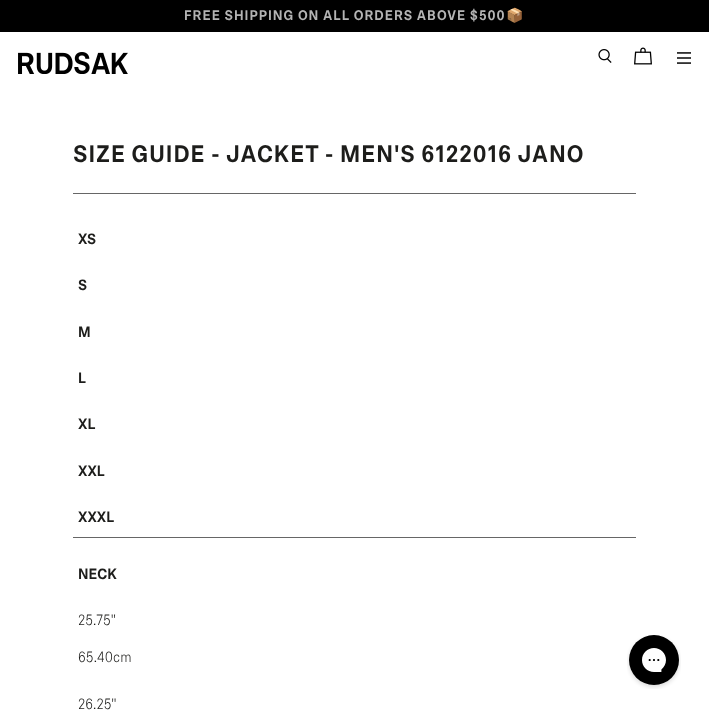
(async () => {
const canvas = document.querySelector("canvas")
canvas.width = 709
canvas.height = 712
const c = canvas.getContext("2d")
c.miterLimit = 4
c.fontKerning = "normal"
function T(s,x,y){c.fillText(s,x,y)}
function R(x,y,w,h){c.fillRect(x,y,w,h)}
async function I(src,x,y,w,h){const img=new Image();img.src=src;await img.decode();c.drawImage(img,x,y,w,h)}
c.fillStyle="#fff"
R(0,0,709,712)
c.fillStyle="#000"
R(0,0,709,32)
c.letterSpacing="1px"
c.font="bold 14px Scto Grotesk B"
c.fillStyle="#b4b4b4"
T("FREE SHIPPING ON ALL ORDERS ABOVE $500",184,20)
c.font="bold 14px Noto Color Emoji"
T("📦",506,20)
await I("1.png",18,52,110,22)
await I("2.png",598,49,14,14)
await I("3.png",634,47,18,18)
await I("4.png",677,52,14,12)
c.font="bold 24px Scto Grotesk B"
c.fillStyle="#1d1d1b"
T("SIZE GUIDE - JACKET - MEN'S 6122016 JANO",73,162)
c.fillStyle="#666"
R(73,193,563,1)
R(73,537,563,1)
c.letterSpacing="0px"
c.font="bold 15px Scto Grotesk B"
c.fillStyle="#1d1d1b"
T("XS",78,244)
T("S",78,290)
T("M",78,337)
T("L",78,383)
T("XL",78,429)
T("XXL",78,476)
T("XXXL",78,522)
T("NECK",78,579)
c.font="300 15px Scto Grotesk B"
T("25.75\"",78,625)
T("65.40cm",78,662)
T("26.25\"",78,709)
await I("5.png",627,635,54,54)
})()
